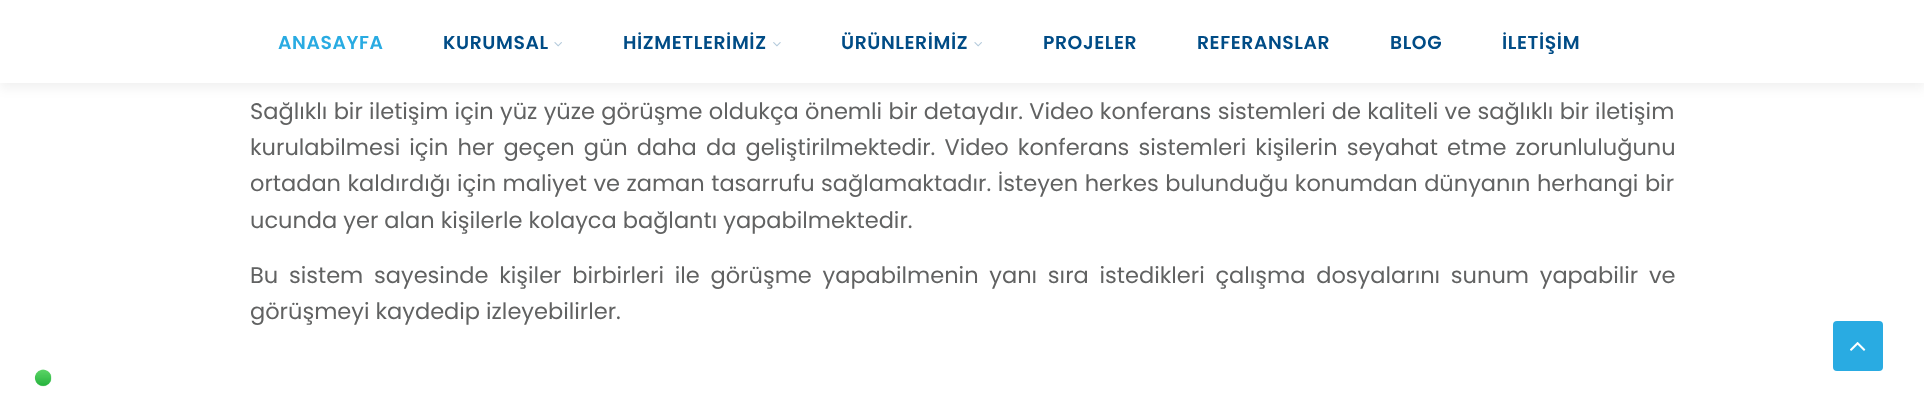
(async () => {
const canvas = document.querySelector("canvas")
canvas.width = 1924
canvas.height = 413
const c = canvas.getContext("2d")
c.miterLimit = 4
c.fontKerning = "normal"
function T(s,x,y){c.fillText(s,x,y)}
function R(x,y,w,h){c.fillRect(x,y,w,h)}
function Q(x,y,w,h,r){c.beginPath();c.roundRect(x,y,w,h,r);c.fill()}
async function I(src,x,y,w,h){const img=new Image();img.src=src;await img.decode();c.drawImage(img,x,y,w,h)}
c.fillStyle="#fff"
R(0,0,1924,413)
c.fillStyle="#0000000f"
c.filter="blur(6px)"
c.beginPath()
c.rect(0,5,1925,83)
c.fill()
c.filter="none"
c.fillStyle="#fff"
R(0,0,1924,83)
c.letterSpacing="0.6px"
c.font="600 18.75px Poppins"
c.fillStyle="#29abe2"
T("ANASAYFA",278,49)
c.fillStyle="#004c86"
T("KURUMSAL",443,49)
await I("1.png",554,42,8,5)
T("HİZMETLERİMİZ",623,49)
await I("2.png",773,42,8,5)
T("ÜRÜNLERİMİZ",841,49)
await I("1.png",974,42,8,5)
T("PROJELER",1043,49)
T("REFERANSLAR",1197,49)
T("BLOG",1390,49)
T("İLETİŞİM",1502,49)
c.letterSpacing="0px"
c.wordSpacing="0.3px"
c.font="22.5px Poppins"
c.fillStyle="#616262"
T("Sağlıklı bir iletişim için yüz yüze görüşme oldukça önemli bir detaydır. Video konferans sistemleri de kaliteli ve sağlıklı bir iletişim",250,119)
c.wordSpacing="3.1px"
T("kurulabilmesi için her geçen gün daha da geliştirilmektedir. Video konferans sistemleri kişilerin seyahat etme zorunluluğunu",250,155)
c.wordSpacing="0.5px"
T("ortadan kaldırdığı için maliyet ve zaman tasarrufu sağlamaktadır. İsteyen herkes bulunduğu konumdan dünyanın herhangi bir",250,191)
c.wordSpacing="0px"
T("ucunda yer alan kişilerle kolayca bağlantı yapabilmektedir.",250,228)
c.wordSpacing="4.75px"
T("Bu sistem sayesinde kişiler birbirleri ile görüşme yapabilmenin yanı sıra istedikleri çalışma dosyalarını sunum yapabilir ve",250,283)
c.wordSpacing="0px"
T("görüşmeyi kaydedip izleyebilirler.",250,319)
c.fillStyle="#29abe2"
Q(1833,321,50,50,4)
await I("3.png",1850,342,16,9)
await I("4.png",34,369,18,18)
})()
